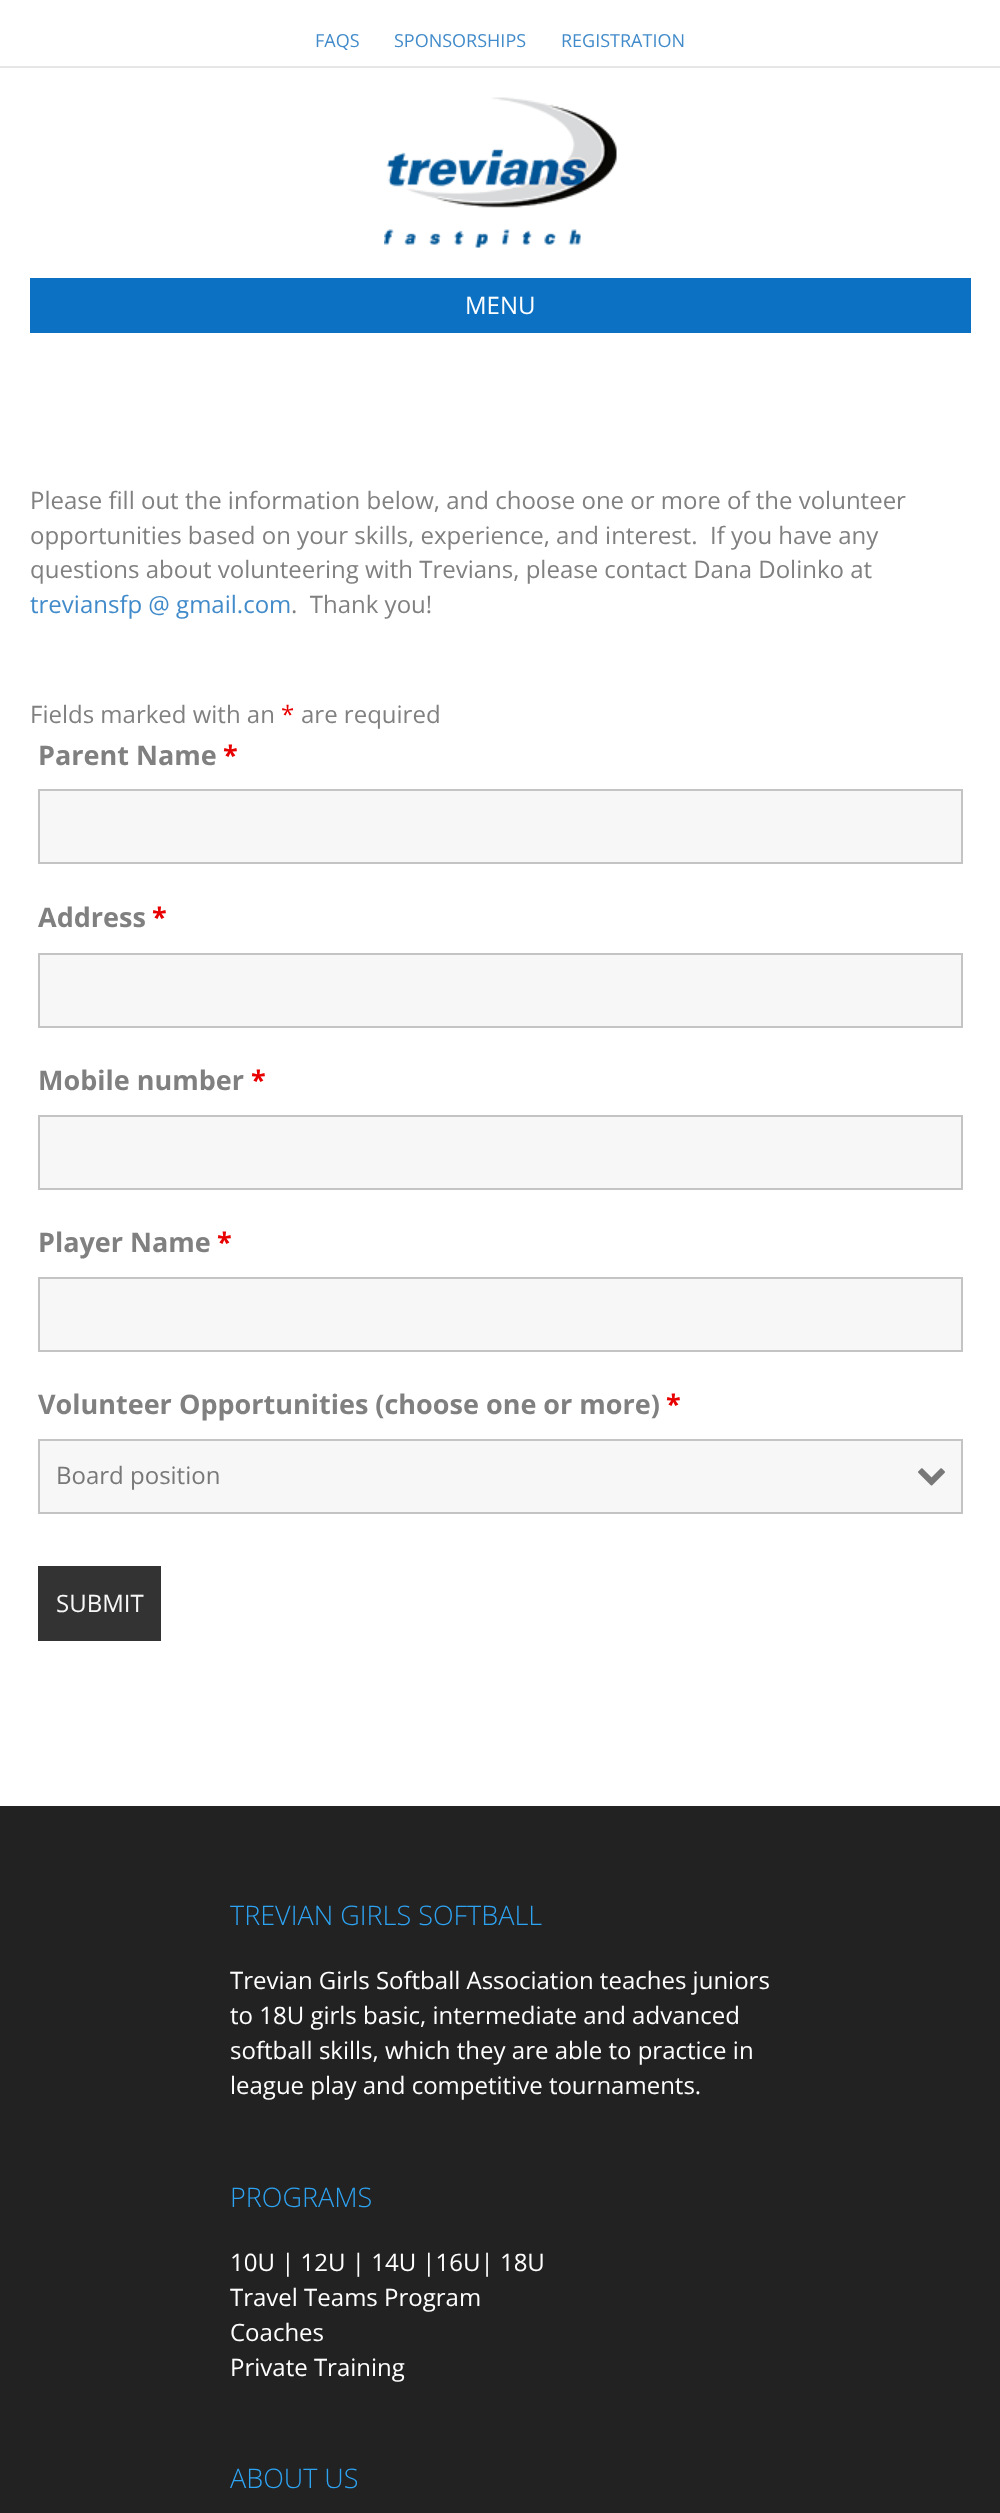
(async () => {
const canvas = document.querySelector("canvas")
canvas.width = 1000
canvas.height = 2513
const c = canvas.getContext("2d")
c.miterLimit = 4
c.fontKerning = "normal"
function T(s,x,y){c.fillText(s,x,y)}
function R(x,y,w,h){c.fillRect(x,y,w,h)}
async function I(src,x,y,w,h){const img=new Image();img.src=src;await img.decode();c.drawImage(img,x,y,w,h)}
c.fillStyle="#fff"
R(0,0,1000,2513)
c.fillStyle="#e6e6e6"
R(0,66,1000,2)
c.font="18px Open Sans"
c.fillStyle="#428bca"
T("FAQS",315,47)
T("SPONSORSHIPS",394,47)
T("REGISTRATION",561,47)
await I("1.png",384,97,233,151)
c.fillStyle="#0c71c3"
R(30,278,941,55)
c.font="24px Open Sans"
c.fillStyle="#fff"
T("MENU",465,314)
c.fillStyle="#808080"
T("Please fill out the information below, and choose one or more of the volunteer",30,509)
T("opportunities based on your skills, experience, and interest.  If you have any",30,544)
T("questions about volunteering with Trevians, please contact Dana Dolinko at",30,578)
c.fillStyle="#428bca"
T("treviansfp @ gmail.com",30,613)
c.fillStyle="#808080"
T(".  Thank you!",291,613)
T("Fields marked with an",30,723)
c.fillStyle="#e80000"
T("*",281,723)
c.fillStyle="#808080"
T("are required",301,723)
c.font="bold 27px Open Sans"
T("Parent Name",38,765)
c.fillStyle="#e80000"
T("*",223,765)
c.fillStyle="#f7f7f7"
c.beginPath()
c.rect(39,790,923,73)
c.fill()
c.strokeStyle="#c4c4c4"
c.lineWidth=2
c.stroke()
c.fillStyle="#808080"
T("Address",38,927)
c.fillStyle="#e80000"
T("*",152,927)
c.fillStyle="#f7f7f7"
c.beginPath()
c.rect(39,954,923,73)
c.fill()
c.stroke()
c.fillStyle="#808080"
T("Mobile number",38,1090)
c.fillStyle="#e80000"
T("*",251,1090)
c.fillStyle="#f7f7f7"
c.beginPath()
c.rect(39,1116,923,73)
c.fill()
c.stroke()
c.fillStyle="#808080"
T("Player Name",38,1252)
c.fillStyle="#e80000"
T("*",217,1252)
c.fillStyle="#f7f7f7"
c.beginPath()
c.rect(39,1278,923,73)
c.fill()
c.stroke()
c.fillStyle="#808080"
T("Volunteer Opportunities (choose one or more)",38,1414)
c.fillStyle="#e80000"
T("*",666,1414)
c.fillStyle="#f7f7f7"
c.beginPath()
c.rect(39,1440,923,73)
c.fill()
c.stroke()
await I("2.png",918,1468,27,18)
c.font="24px Open Sans"
c.fillStyle="#787878"
T("Board position",56,1484)
c.fillStyle="#333"
R(38,1566,123,75)
c.fillStyle="#f7f7f7"
T("SUBMIT",56,1612)
c.fillStyle="#222"
R(0,1806,1000,707)
c.font="300 27px Open Sans"
c.fillStyle="#2ea3f2"
T("TREVIAN GIRLS SOFTBALL",230,1925)
c.font="24px Open Sans"
c.fillStyle="#fff"
T("Trevian Girls Softball Association teaches juniors",230,1989)
T("to 18U girls basic, intermediate and advanced",230,2024)
T("softball skills, which they are able to practice in",230,2059)
T("league play and competitive tournaments.",230,2094)
c.font="300 27px Open Sans"
c.fillStyle="#2ea3f2"
T("PROGRAMS",230,2207)
c.font="24px Open Sans"
c.fillStyle="#fff"
T("10U | 12U | 14U |16U| 18U",230,2271)
T("Travel Teams Program",230,2306)
T("Coaches",230,2341)
T("Private Training",230,2376)
c.font="300 27px Open Sans"
c.fillStyle="#2ea3f2"
T("ABOUT US",230,2488)
})()
